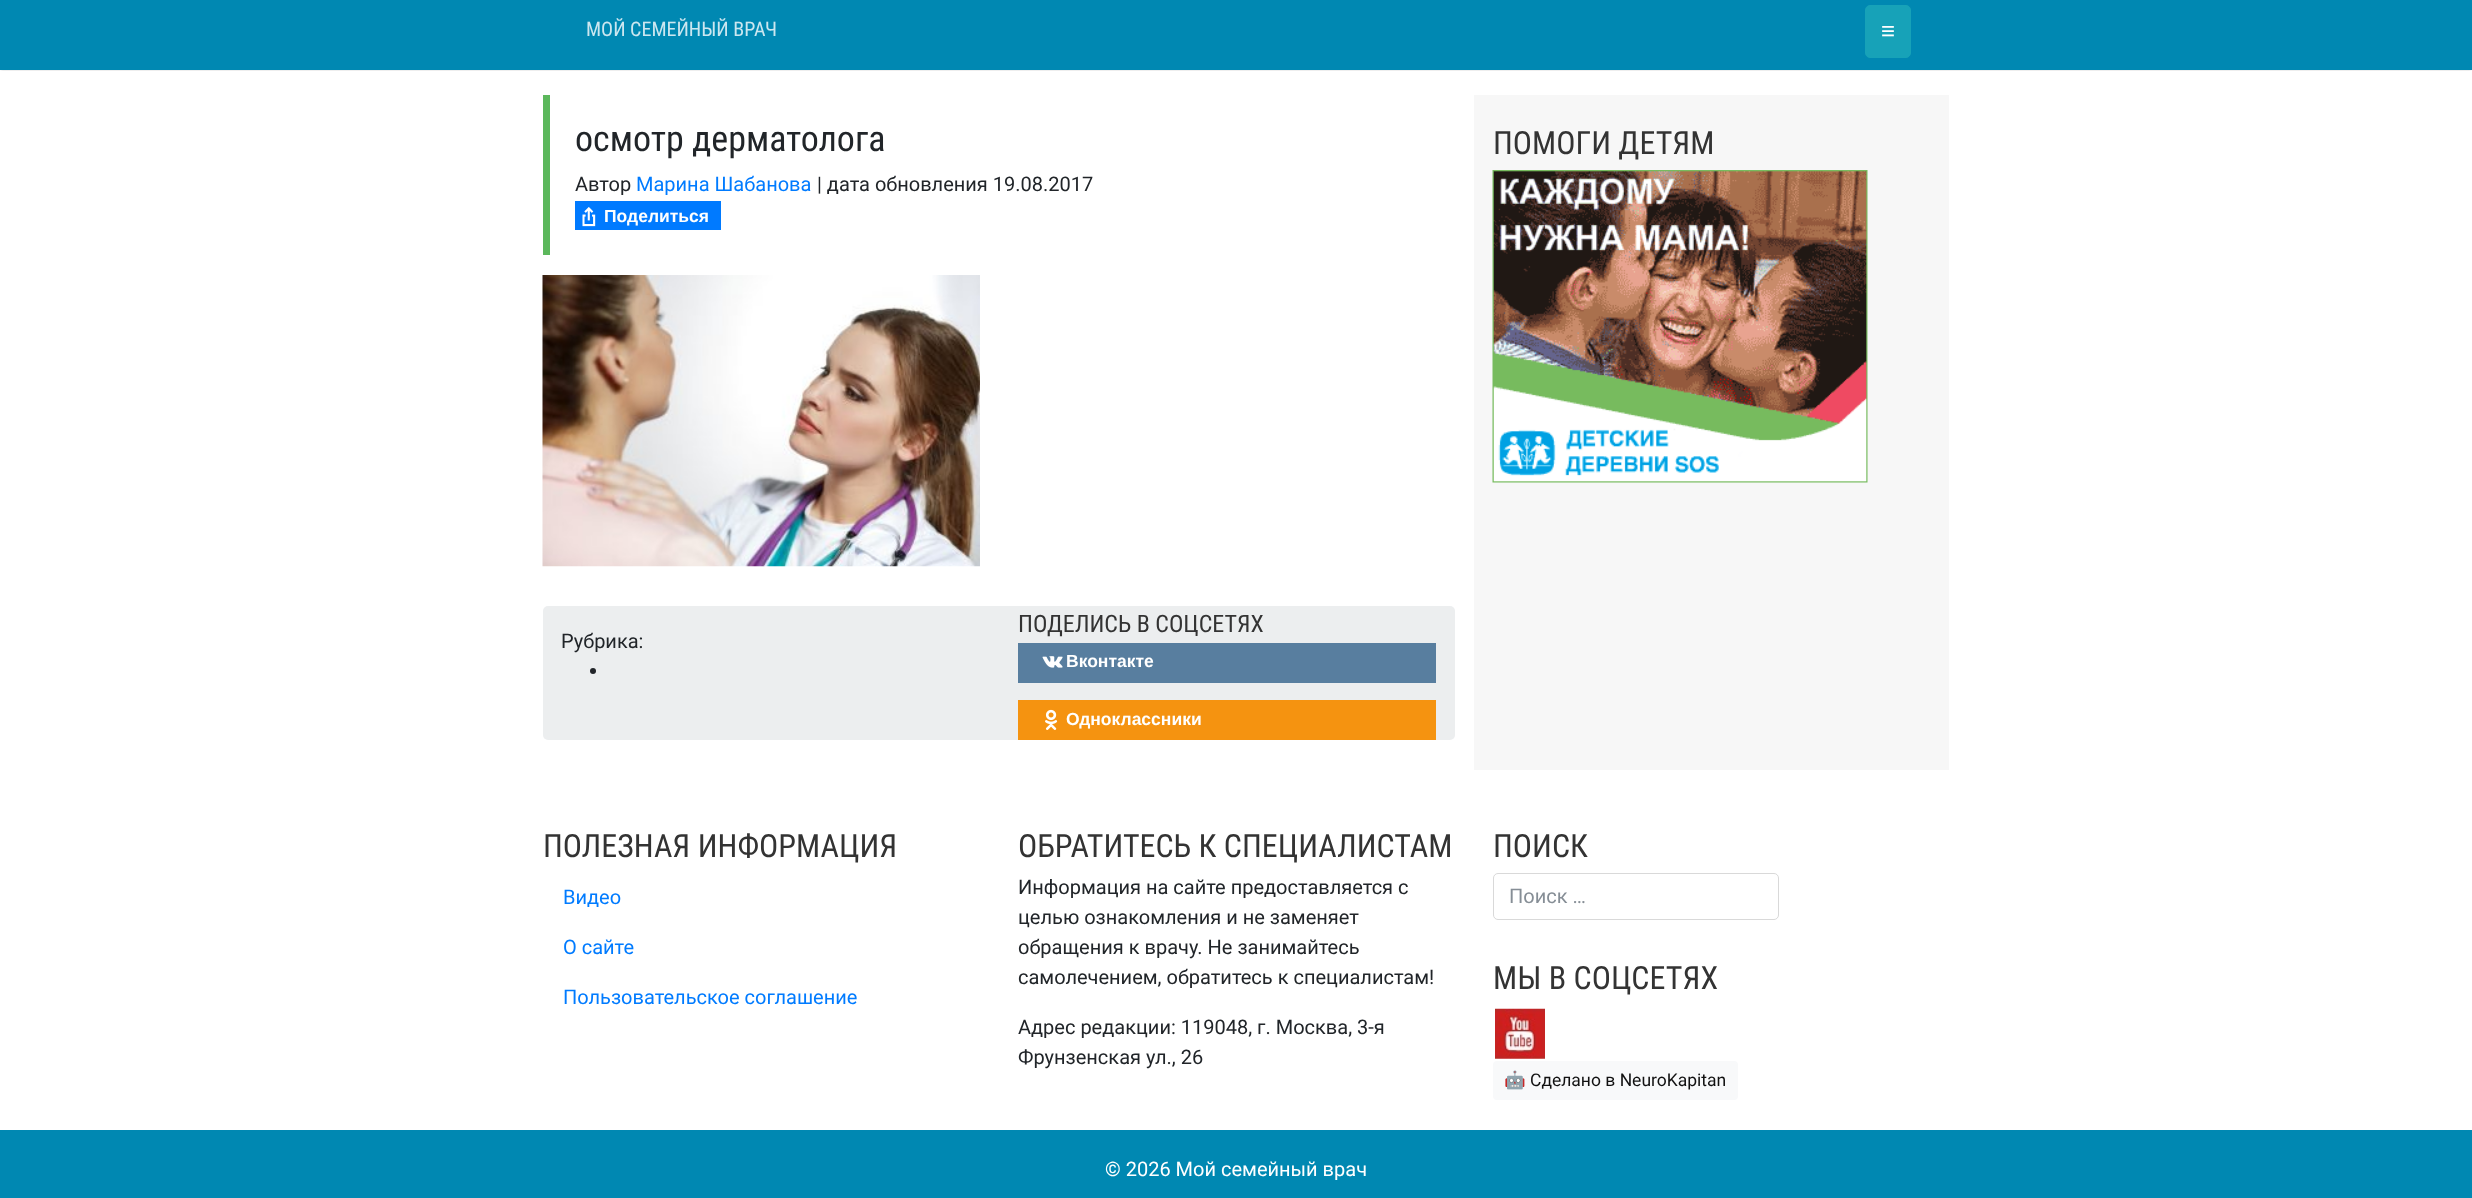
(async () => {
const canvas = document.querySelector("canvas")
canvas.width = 2472
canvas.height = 1198
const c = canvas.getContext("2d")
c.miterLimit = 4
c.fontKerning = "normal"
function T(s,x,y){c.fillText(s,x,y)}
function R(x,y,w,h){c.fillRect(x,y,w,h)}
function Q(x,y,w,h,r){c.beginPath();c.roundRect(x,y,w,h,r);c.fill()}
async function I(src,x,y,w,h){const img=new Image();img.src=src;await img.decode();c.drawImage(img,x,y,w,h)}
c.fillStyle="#fff"
R(0,0,2472,1198)
c.fillStyle="#333"
c.filter="blur(1px)"
c.beginPath()
c.rect(1,1,2470,68)
c.fill()
c.filter="none"
c.fillStyle="#0088b2"
R(0,0,2472,70)
c.font="20px Roboto Condensed"
c.fillStyle="#cce7f0"
T("МОЙ СЕМЕЙНЫЙ ВРАЧ",586,36)
c.fillStyle="#17a2b8"
c.beginPath()
c.roundRect(1865.5,5.5,45,52,4.5)
c.fill()
c.strokeStyle="#17a2b8"
c.stroke()
c.font="24px Liberation Sans"
c.fillStyle="#fff"
T("≡",1881,39)
c.fillStyle="#5cb85c"
R(543,95,7,160)
c.font="36px Roboto Condensed"
c.fillStyle="#212529"
T("осмотр дерматолога",575,151)
c.font="20px Roboto"
T("Автор",575,191)
c.fillStyle="#007bff"
T("Марина Шабанова",636,191)
c.fillStyle="#212529"
T("| дата обновления 19.08.2017",817,191)
c.fillStyle="#007aff"
R(575,201,146,29)
await I("1.png",582,207,14,20)
c.font="bold 17.5px Liberation Sans"
c.fillStyle="#fff"
T("Поделиться",604,222)
await I("2.png",542,275,438,292)
c.fillStyle="#eceeef"
Q(543,606,912,134,5)
c.font="20px Roboto"
c.fillStyle="#212529"
T("Рубрика:",561,648)
c.beginPath()
c.arc(593,671,3,0,7)
c.fill()
c.font="24px Roboto Condensed"
c.fillStyle="#333"
T("ПОДЕЛИСЬ В СОЦСЕТЯХ",1018,632)
c.fillStyle="#587e9f"
R(1018,643,418,40)
await I("3.png",1042,656,21,12)
c.font="bold 17.5px Liberation Sans"
c.fillStyle="#fff"
T("Вконтакте",1066,667)
c.fillStyle="#f59310"
R(1018,700,418,40)
await I("4.png",1045,709,13,21)
c.fillStyle="#fff"
T("Одноклассники",1066,725)
c.fillStyle="#f7f7f7"
R(1474,95,475,675)
c.font="32px Roboto Condensed"
c.fillStyle="#333"
T("ПОМОГИ ДЕТЯМ",1493,154)
await I("5.png",1492,170,376,313)
T("ПОЛЕЗНАЯ ИНФОРМАЦИЯ",543,857)
c.font="20px Roboto"
c.fillStyle="#007bff"
T("Видео",563,904)
T("О сайте",563,954)
T("Пользовательское соглашение",563,1004)
c.font="32px Roboto Condensed"
c.fillStyle="#333"
T("ОБРАТИТЕСЬ К СПЕЦИАЛИСТАМ",1018,857)
c.font="20px Roboto"
c.fillStyle="#212529"
T("Информация на сайте предоставляется с",1018,894)
T("целью ознакомления и не заменяет",1018,924)
T("обращения к врачу. Не занимайтесь",1018,954)
T("самолечением, обратитесь к специалистам!",1018,984)
T("Адрес редакции: 119048, г. Москва, 3-я",1018,1034)
T("Фрунзенская ул., 26",1018,1064)
c.font="32px Roboto Condensed"
c.fillStyle="#333"
T("ПОИСК",1493,857)
c.beginPath()
c.roundRect(1493.5,873.5,285,46,4.5)
c.strokeStyle="#d9d9d9"
c.stroke()
c.font="20px Roboto"
c.fillStyle="#868e96"
T("Поиск …",1509,903)
c.font="32px Roboto Condensed"
c.fillStyle="#333"
T("МЫ В СОЦСЕТЯХ",1493,989)
await I("6.png",1495,1008,50,51)
c.fillStyle="#f8f9fa"
Q(1493,1061,245,39,4)
c.font="17.5px Noto Color Emoji"
c.fillStyle="#111"
T("🤖",1504,1086)
c.font="17.5px Roboto"
T("Сделано в NeuroKapitan",1530,1086)
c.fillStyle="#0088b2"
R(0,1130,2472,68)
c.font="20px Roboto"
c.fillStyle="#fff"
T("© 2026 Мой семейный врач",1105,1176)
})()
